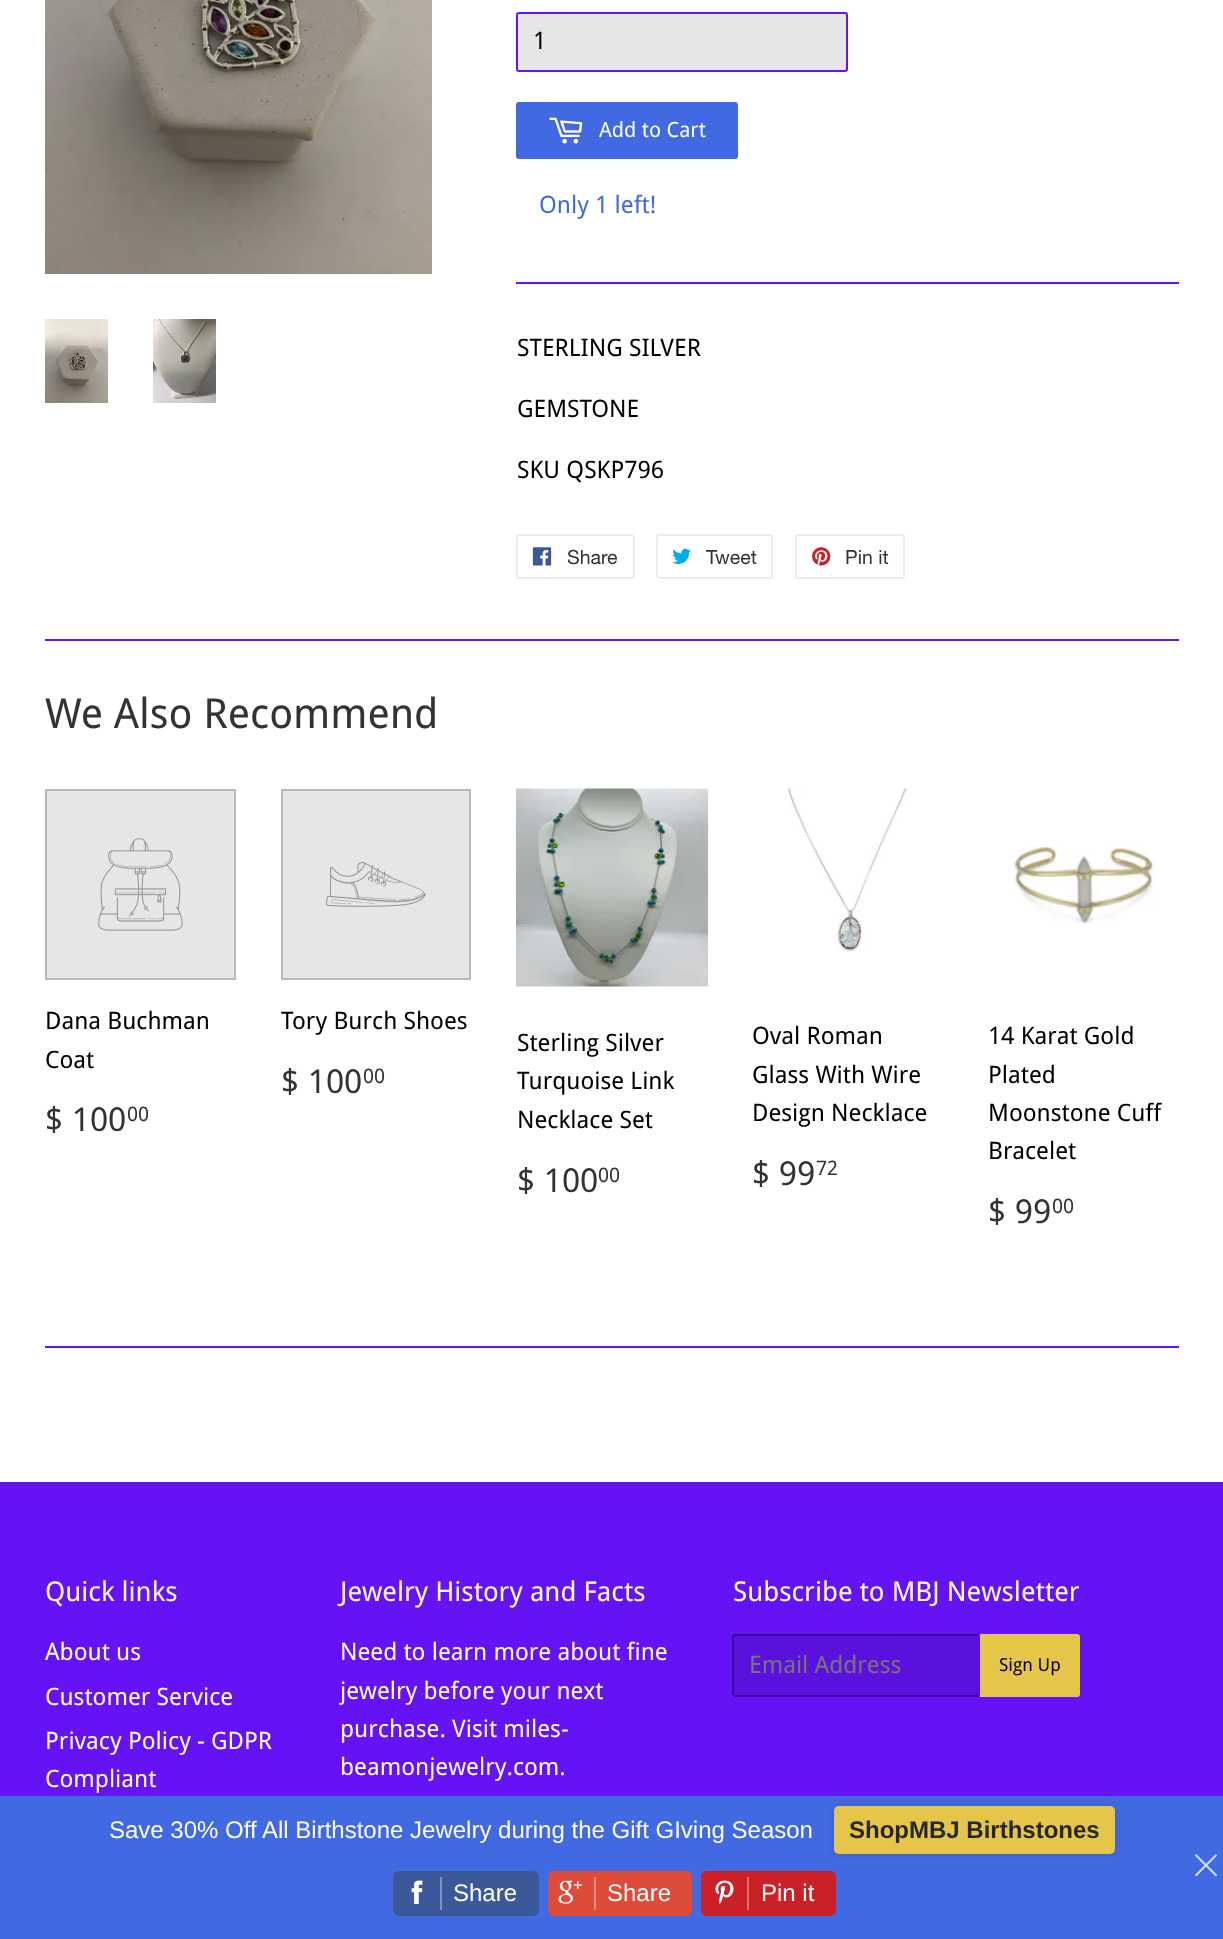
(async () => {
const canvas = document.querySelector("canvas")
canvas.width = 1223
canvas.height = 1939
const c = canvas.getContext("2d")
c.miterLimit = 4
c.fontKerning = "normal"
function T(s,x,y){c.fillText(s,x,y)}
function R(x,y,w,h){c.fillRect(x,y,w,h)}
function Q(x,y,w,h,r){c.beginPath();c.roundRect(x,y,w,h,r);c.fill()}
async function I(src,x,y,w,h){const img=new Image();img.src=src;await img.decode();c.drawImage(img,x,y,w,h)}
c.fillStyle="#fff"
R(0,0,1223,1939)
await I("1.png",45,0,387,274)
await I("2.png",45,319,63,84)
await I("3.png",153,319,63,84)
c.fillStyle="#e6e6e6"
c.beginPath()
c.roundRect(517,13,330,58,2)
c.fill()
c.strokeStyle="#6513f5"
c.lineWidth=2
c.stroke()
c.font="24px Droid Sans"
c.fillStyle="#000"
T("1",533,49)
c.fillStyle="#4169e1"
Q(516,102,222,57,3)
await I("4.png",549,117,34,27)
c.font="21px Droid Sans"
c.fillStyle="#fff"
T("Add to Cart",599,137)
c.font="24px Droid Sans"
c.fillStyle="#4169e1"
T("Only 1 left!",539,213)
c.fillStyle="#6513f5"
R(516,282,663,2)
c.fillStyle="#000"
T("STERLING SILVER",517,356)
T("GEMSTONE",517,417)
T("SKU QSKP796",517,478)
c.beginPath()
c.roundRect(517,535,117,43,2)
c.strokeStyle="#ececec"
c.stroke()
await I("5.png",532,547,20,19)
c.font="19.5px Helvetica Neue"
c.fillStyle="#333"
T("Share",567,564)
c.beginPath()
c.roundRect(657,535,115,43,2)
c.stroke()
await I("6.png",672,548,19,16)
T("Tweet",706,564)
c.beginPath()
c.roundRect(796,535,108,43,2)
c.stroke()
await I("7.png",812,547,19,19)
T("Pin it",845,564)
c.fillStyle="#6513f5"
R(45,639,1134,2)
c.font="41.5px Droid Sans"
c.fillStyle="#333"
T("We Also Recommend",45,728)
c.fillStyle="#e6e6e6"
c.beginPath()
c.rect(46,790,189,189)
c.fill()
c.strokeStyle="#b8b8b8"
c.stroke()
await I("8.png",98,838,85,93)
c.font="24px Droid Sans"
c.fillStyle="#000"
T("Dana Buchman",45,1029)
T("Coat",45,1068)
c.font="33px Droid Sans"
c.fillStyle="#333"
T("$ 100",45,1131)
c.font="20px Droid Sans"
T("00",127,1121)
c.fillStyle="#e6e6e6"
c.beginPath()
c.rect(282,790,188,189)
c.fill()
c.stroke()
await I("9.png",326,862,100,45)
c.font="24px Droid Sans"
c.fillStyle="#000"
T("Tory Burch Shoes",281,1029)
c.font="33px Droid Sans"
c.fillStyle="#333"
T("$ 100",281,1093)
c.font="20px Droid Sans"
T("00",363,1083)
await I("10.png",516,788,192,199)
c.font="24px Droid Sans"
c.fillStyle="#000"
T("Sterling Silver",517,1051)
T("Turquoise Link",517,1089)
T("Necklace Set",517,1128)
c.font="33px Droid Sans"
c.fillStyle="#333"
T("$ 100",517,1192)
c.font="20px Droid Sans"
T("00",598,1182)
await I("11.png",788,788,121,164)
c.font="24px Droid Sans"
c.fillStyle="#000"
T("Oval Roman",752,1044)
T("Glass With Wire",752,1083)
T("Design Necklace",752,1121)
c.font="33px Droid Sans"
c.fillStyle="#333"
T("$ 99",752,1185)
c.font="20px Droid Sans"
T("72",816,1175)
await I("12.png",1014,846,144,78)
c.font="24px Droid Sans"
c.fillStyle="#000"
T("14 Karat Gold",988,1044)
T("Plated",988,1083)
T("Moonstone Cuff",988,1121)
T("Bracelet",988,1159)
c.font="33px Droid Sans"
c.fillStyle="#333"
T("$ 99",988,1223)
c.font="20px Droid Sans"
T("00",1052,1213)
c.fillStyle="#6513f5"
R(45,1346,1134,2)
R(0,1482,1223,314)
c.font="27.25px Droid Sans"
c.fillStyle="#fff"
T("Quick links",45,1601)
c.font="24px Droid Sans"
T("About us",45,1660)
T("Customer Service",45,1705)
T("Privacy Policy - GDPR",45,1749)
T("Compliant",45,1787)
c.font="27.25px Droid Sans"
T("Jewelry History and Facts",340,1601)
c.font="24px Droid Sans"
T("Need to learn more about fine",340,1660)
T("jewelry before your next",340,1699)
T("purchase. Visit miles-",340,1737)
T("beamonjewelry.com.",340,1775)
c.font="27.25px Droid Sans"
T("Subscribe to MBJ Newsletter",733,1601)
c.fillStyle="#5b11dd"
Q(732,1634,248,63,3)
c.fillStyle="#3d079b"
R(734,1634,244,2)
R(734,1695,244,2)
R(732,1635,2,60)
c.font="24px Droid Sans"
c.fillStyle="#757575"
T("Email Address",749,1673)
c.fillStyle="#e5c649"
c.beginPath()
c.roundRect(980,1634,100,63,[0,3,3,0])
c.fill()
c.font="18px Droid Sans"
c.fillStyle="#000"
T("Sign Up",999,1671)
c.fillStyle="#4169e1"
R(0,1796,1223,143)
c.font="24px Liberation Sans"
c.fillStyle="#fff"
T("Save 30% Off All Birthstone Jewelry during the Gift GIving Season",109,1838)
c.fillStyle="#0000001a"
c.filter="blur(4px)"
c.beginPath()
c.roundRect(834,1806,281,48,5)
c.fill()
c.filter="none"
c.fillStyle="#e5c649"
Q(834,1806,281,48,5)
c.font="bold 24px Liberation Sans"
c.fillStyle="#272727"
T("ShopMBJ Birthstones",849,1838)
c.fillStyle="#3b5999"
Q(393,1871,146,45,6)
c.fillStyle="#8093bd"
R(440,1877,2,33)
await I("13.png",411,1880,12,24)
c.font="24px Liberation Sans"
c.fillStyle="#fff"
T("Share",453,1901)
c.fillStyle="#de4b39"
Q(548,1871,144,45,6)
c.fillStyle="#ea8a7e"
R(594,1877,2,33)
await I("14.png",558,1880,24,24)
c.fillStyle="#fff"
T("Share",607,1901)
c.fillStyle="#cb2026"
Q(701,1871,135,45,6)
c.fillStyle="#dd6e72"
R(747,1877,2,33)
await I("15.png",715,1880,19,24)
c.fillStyle="#fff"
T("Pin it",761,1901)
await I("16.png",1194,1854,23,23)
})()
